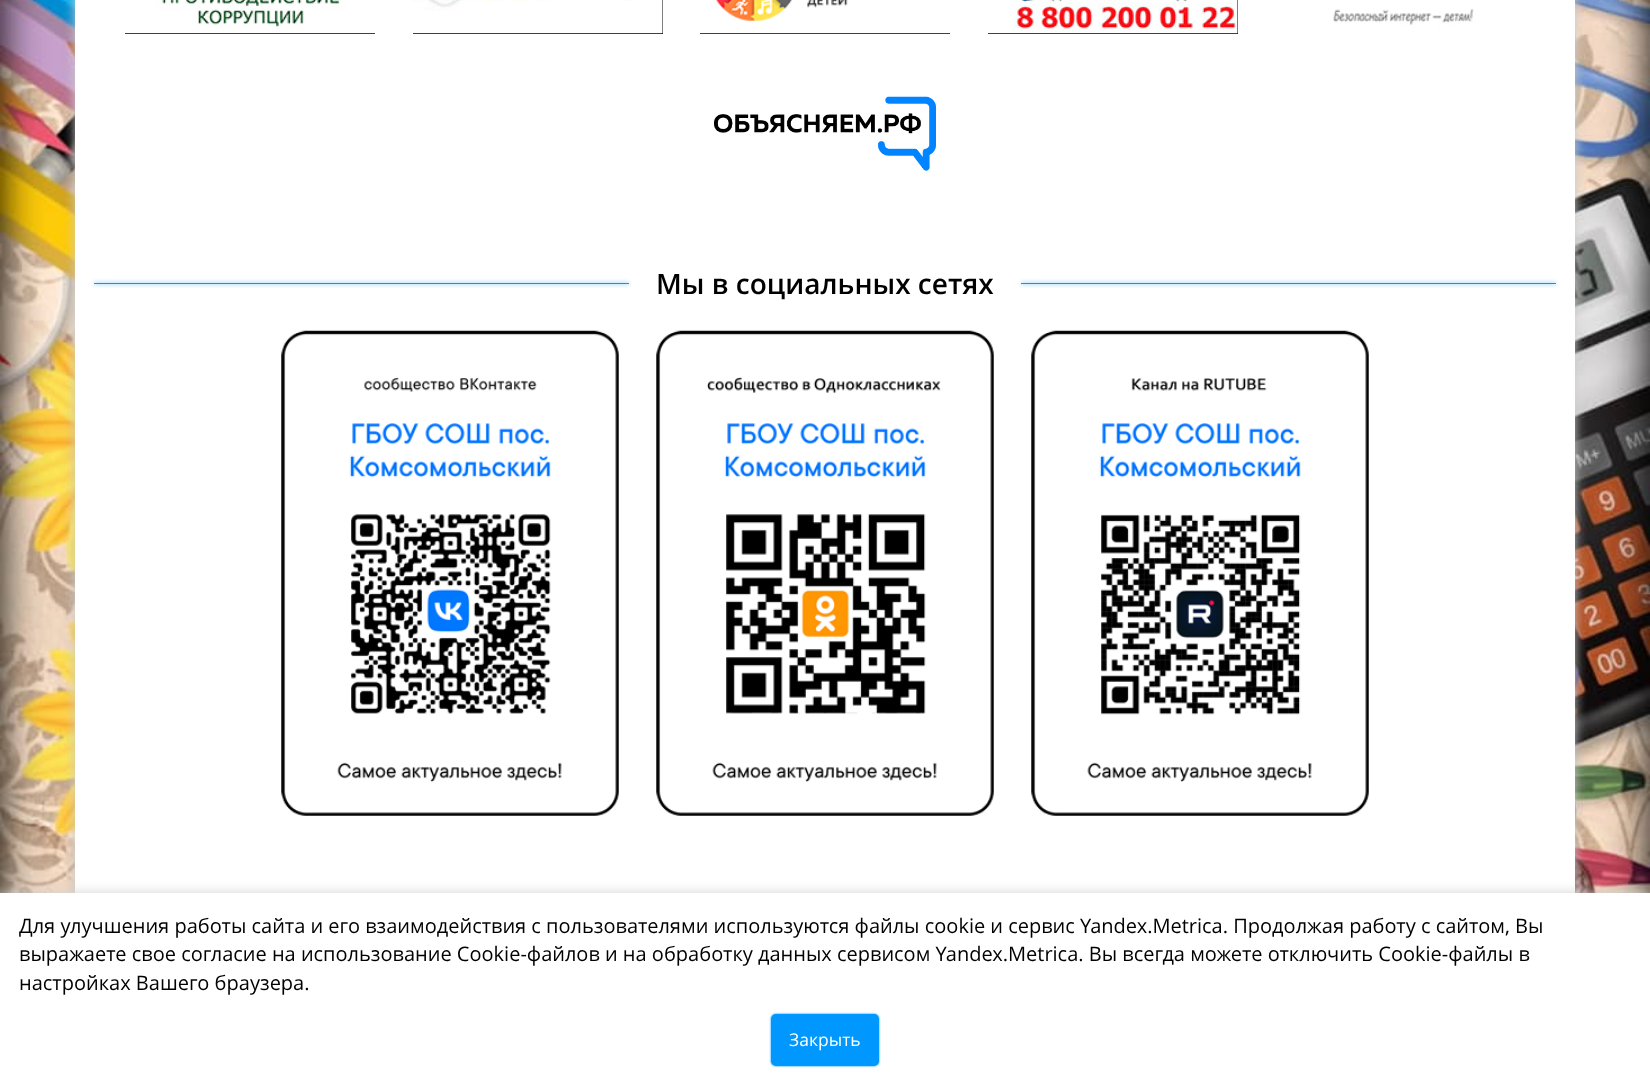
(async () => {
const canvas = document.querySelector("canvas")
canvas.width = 1650
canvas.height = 1084
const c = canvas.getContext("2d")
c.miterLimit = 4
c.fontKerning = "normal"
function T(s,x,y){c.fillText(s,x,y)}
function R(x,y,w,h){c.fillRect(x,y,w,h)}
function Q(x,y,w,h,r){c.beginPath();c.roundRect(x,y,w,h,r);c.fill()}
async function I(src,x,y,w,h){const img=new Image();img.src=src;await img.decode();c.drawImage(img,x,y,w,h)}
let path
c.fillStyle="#fff"
R(0,0,1650,1084)
await I("1.png",0,0,1650,893)
c.fillStyle="#ccc"
c.filter="blur(6px)"
c.beginPath()
c.rect(75,-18,1500,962)
c.fill()
c.filter="none"
c.fillStyle="#fff"
R(75,0,1500,893)
c.fillStyle="#000"
c.filter="blur(0.5px)"
c.beginPath()
c.rect(125,-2,250,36)
c.fill()
c.filter="none"
await I("2.png",125,0,250,34)
c.filter="blur(0.5px)"
c.beginPath()
c.rect(413,-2,250,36)
c.fill()
c.filter="none"
await I("3.png",412,0,251,34)
c.filter="blur(0.5px)"
c.beginPath()
c.rect(700,-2,250,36)
c.fill()
c.filter="none"
await I("4.png",700,0,250,34)
c.filter="blur(0.5px)"
c.beginPath()
c.rect(988,-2,250,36)
c.fill()
c.filter="none"
await I("5.png",987,0,251,34)
c.save()
path = new Path2D("M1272 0h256v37h-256zm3-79h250v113h-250z")
c.clip(path,"evenodd")
c.filter="blur(0.5px)"
c.beginPath()
c.rect(1275,-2,250,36)
c.fill()
c.filter="none"
c.restore()
await I("6.png",1275,8,250,26)
c.save()
path = new Path2D("M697 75h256v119h-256zm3 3h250v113h-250z")
c.clip(path,"evenodd")
c.filter="blur(0.5px)"
c.beginPath()
c.rect(700,78,250,113)
c.fill()
c.filter="none"
c.restore()
await I("7.png",700,77,250,94)
c.fillStyle="#0098ff"
c.filter="blur(2px)"
c.beginPath()
c.rect(94,283,535,1)
c.fill()
c.filter="none"
R(94,283,535,1)
c.font="600 28px Open Sans"
c.fillStyle="#000"
T("Мы в социальных сетях",656,294)
c.fillStyle="#0098ff"
c.filter="blur(2px)"
c.beginPath()
c.rect(1021,283,535,1)
c.fill()
c.filter="none"
R(1021,283,535,1)
await I("8.png",281,330,338,486)
await I("9.png",656,330,338,486)
await I("10.png",1031,330,338,486)
c.fillStyle="#d3d3d3"
c.filter="blur(6px)"
c.beginPath()
c.rect(0,893,1650,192)
c.fill()
c.filter="none"
c.fillStyle="#000"
c.filter="blur(0.5px)"
c.beginPath()
c.rect(0,893,1650,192)
c.fill()
c.filter="none"
c.fillStyle="#fff"
R(0,893,1650,191)
c.font="20px Open Sans"
c.fillStyle="#000"
T("Для улучшения работы сайта и его взаимодействия с пользователями используются файлы cookie и сервис Yandex.Metrica. Продолжая работу с сайтом, Вы",19,933)
T("выражаете свое согласие на использование Cookie-файлов и на обработку данных сервисом Yandex.Metrica. Вы всегда можете отключить Cookie-файлы в",19,961)
T("настройках Вашего браузера.",19,990)
c.fillStyle="#0098ff"
c.filter="blur(1px)"
c.beginPath()
c.roundRect(771,1014,108,52,5)
c.fill()
c.filter="none"
Q(771,1014,108,52,5)
c.font="17.5px Open Sans"
c.fillStyle="#fff"
T("Закрыть",789,1046)
})()
